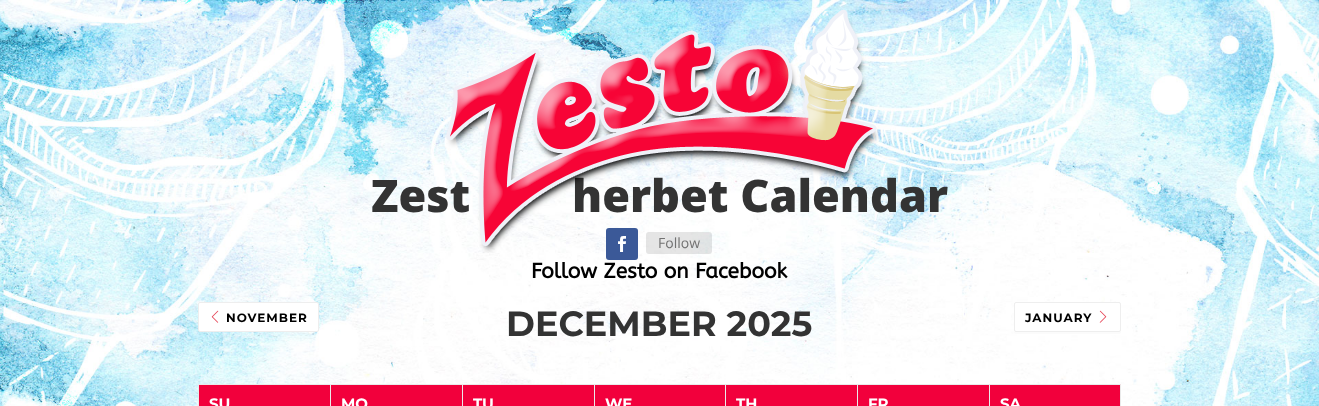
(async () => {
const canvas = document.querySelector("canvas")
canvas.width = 1319
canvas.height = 406
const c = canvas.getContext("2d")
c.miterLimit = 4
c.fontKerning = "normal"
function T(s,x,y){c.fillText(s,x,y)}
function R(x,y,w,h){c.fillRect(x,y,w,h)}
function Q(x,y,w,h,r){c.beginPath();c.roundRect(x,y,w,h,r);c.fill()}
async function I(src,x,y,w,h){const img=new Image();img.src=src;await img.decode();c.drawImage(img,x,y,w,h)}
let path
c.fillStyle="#fff"
R(0,0,1319,406)
await I("1.png",0,0,1319,406)
c.font="800 45px Open Sans"
c.fillStyle="#333"
T("Zest",371,212)
T("herbet Calendar",572,212)
c.fillStyle="#3b5998"
Q(606,228,32,32,3)
await I("2.png",618,236,8,16)
c.fillStyle="#0000001a"
Q(646,232,66,22,3)
c.font="14px Open Sans"
c.fillStyle="#727272"
T("Follow",658,248)
c.fillStyle="#fff"
c.beginPath()
c.roundRect(198.5,302.5,120,29,1.5)
c.fill()
c.strokeStyle="#eee"
c.stroke()
await I("3.png",211,310,8,13)
c.letterSpacing="1px"
c.font="bold 12px Montserrat"
c.fillStyle="#000"
T("NOVEMBER",226,322)
c.letterSpacing="0px"
c.font="bold 35px Montserrat"
c.fillStyle="#333"
T("DECEMBER 2025",506,336)
c.fillStyle="#fbfbfb"
path = new Path2D("M1014 330v2c0 1 1 2 2 2h103c1 0 2-1 2-2v-2c0 1-1 2-2 2h-103c-1 0-2-1-2-2z")
c.fill(path)
c.fillStyle="#fff"
c.beginPath()
c.roundRect(1014.5,302.5,106,29,1.5)
c.fill()
c.stroke()
c.letterSpacing="1px"
c.font="bold 12px Montserrat"
c.fillStyle="#000"
T("JANUARY",1025,322)
await I("4.png",1099,310,8,13)
c.fillStyle="#f2003c"
R(199,385,131,21)
c.fillStyle="#eaeaea"
R(198,384,791,1)
R(198,384,1,22)
c.letterSpacing="0px"
c.font="bold 15px Montserrat"
c.fillStyle="#fff"
T("SU",209,409)
c.fillStyle="#f2003c"
R(331,385,131,21)
c.fillStyle="#eaeaea"
R(330,384,1,22)
c.fillStyle="#fff"
T("MO",341,409)
c.fillStyle="#f2003c"
R(463,385,131,21)
c.fillStyle="#eaeaea"
R(462,384,1,22)
c.fillStyle="#fff"
T("TU",473,409)
c.fillStyle="#f2003c"
R(595,385,130,21)
c.fillStyle="#eaeaea"
R(594,384,1,22)
c.fillStyle="#fff"
T("WE",605,409)
c.fillStyle="#f2003c"
R(726,385,131,21)
c.fillStyle="#eaeaea"
R(725,384,1,22)
c.fillStyle="#fff"
T("TH",736,409)
c.fillStyle="#f2003c"
R(858,385,131,21)
c.fillStyle="#eaeaea"
R(857,384,1,22)
c.fillStyle="#fff"
T("FR",868,409)
c.fillStyle="#f2003c"
c.beginPath()
c.rect(989.5,384.5,131,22)
c.fill()
c.strokeStyle="#eaeaea"
c.stroke()
c.fillStyle="#fff"
T("SA",1000,409)
await I("5.png",446,9,433,244)
c.font="bold 21px ABeeZee"
c.fillStyle="#000"
T("Follow Zesto on Facebook",531,278)
})()
